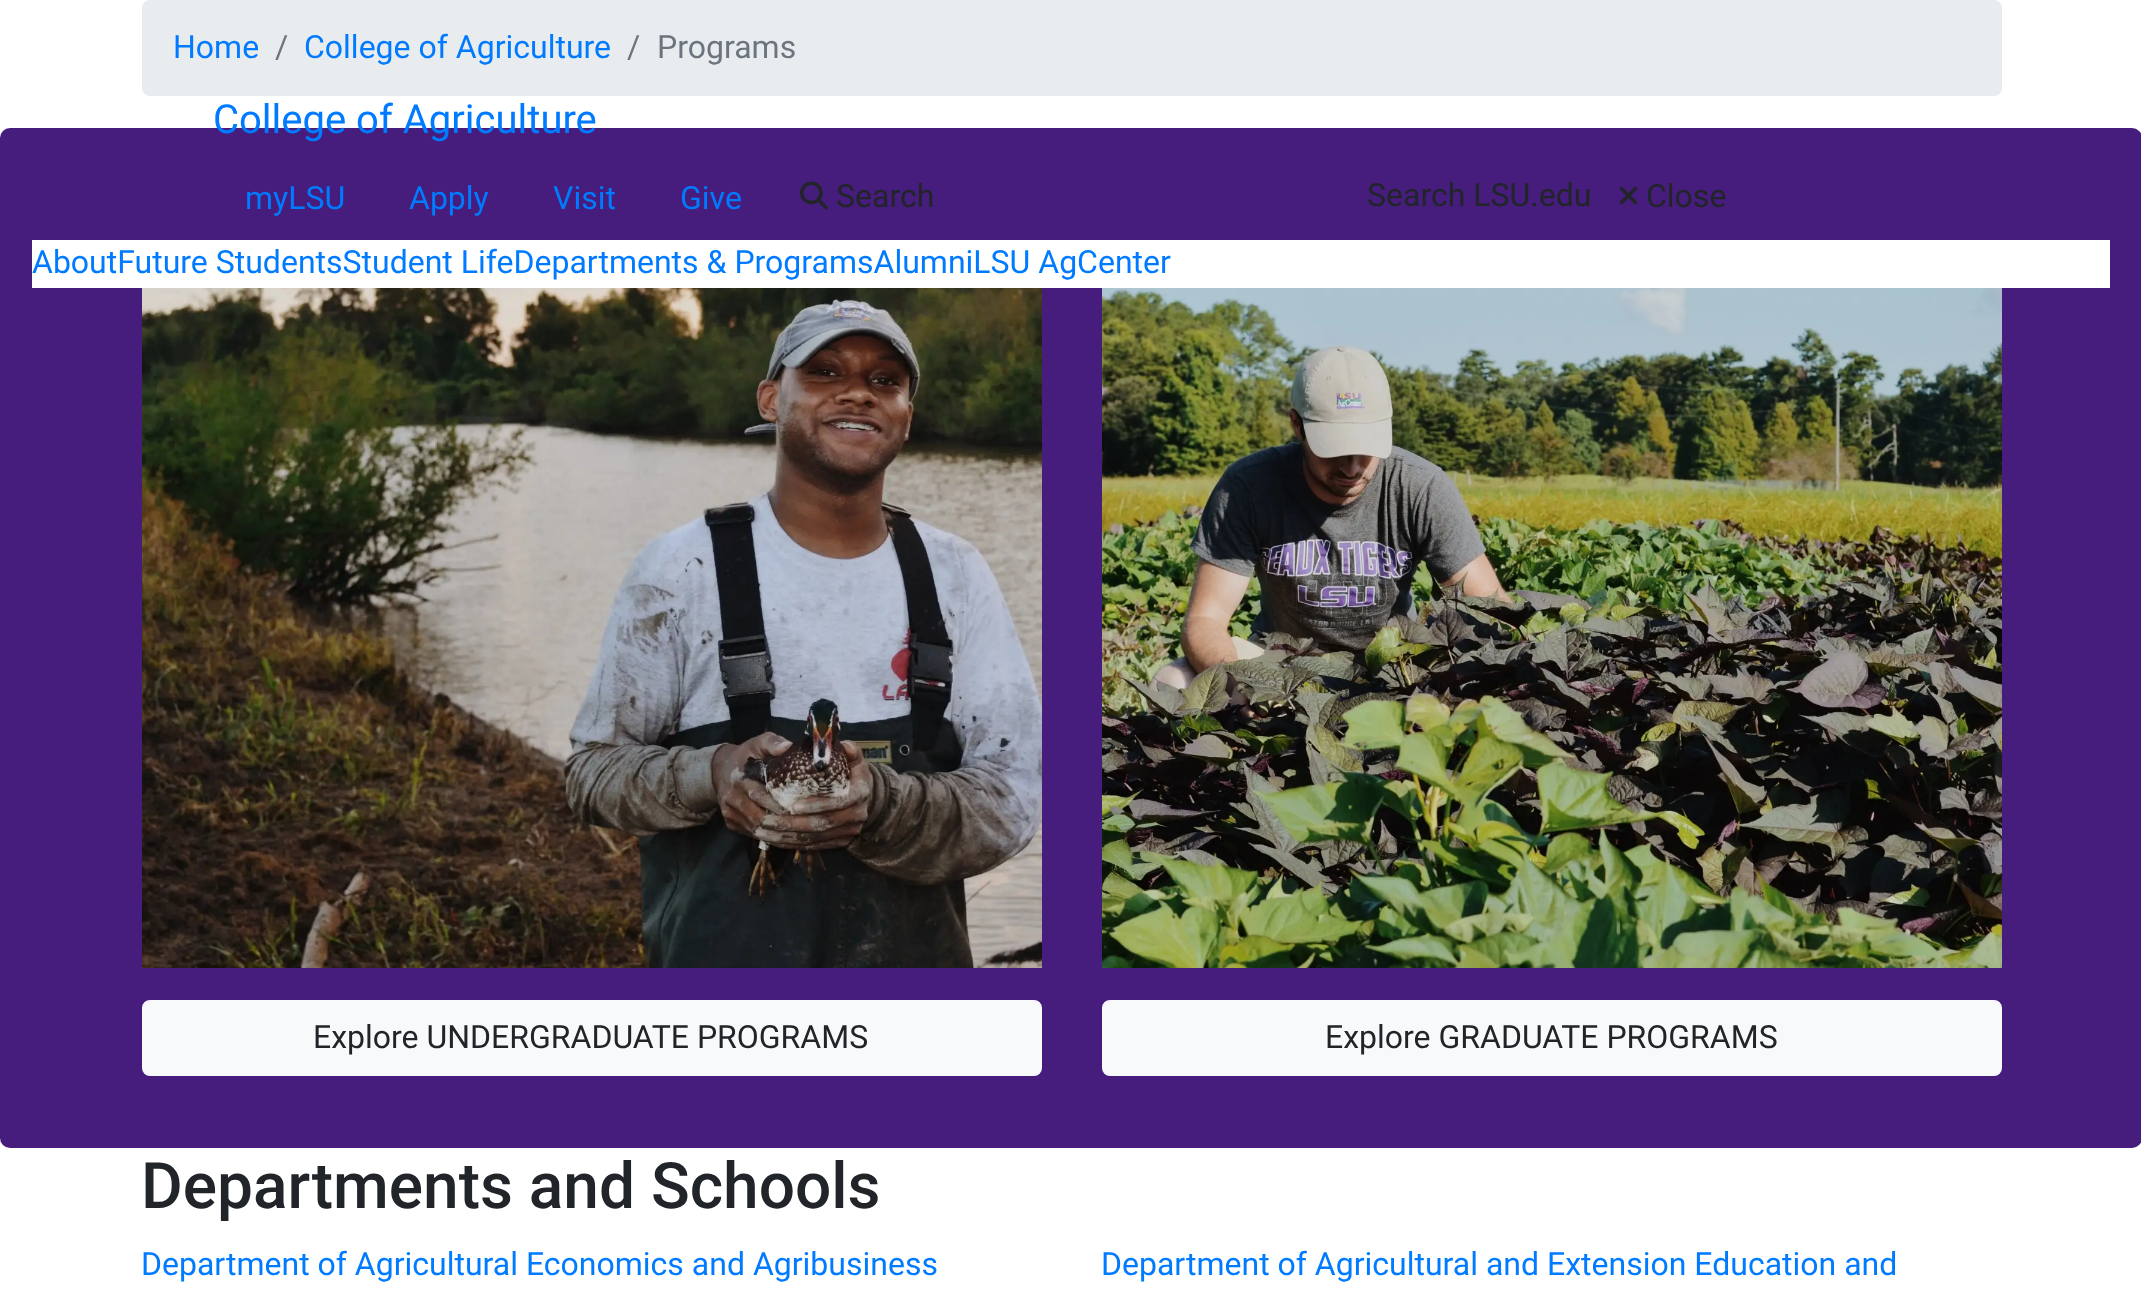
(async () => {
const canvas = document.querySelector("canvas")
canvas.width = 2141
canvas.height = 1297
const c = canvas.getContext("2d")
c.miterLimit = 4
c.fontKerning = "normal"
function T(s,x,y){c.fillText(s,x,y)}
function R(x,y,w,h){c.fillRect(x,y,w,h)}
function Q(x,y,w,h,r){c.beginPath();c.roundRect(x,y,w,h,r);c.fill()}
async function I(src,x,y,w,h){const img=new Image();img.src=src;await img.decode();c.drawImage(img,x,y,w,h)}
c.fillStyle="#fff"
R(0,0,2141,1297)
c.fillStyle="#e9ecef"
Q(142,0,1860,96,8)
c.font="32px Roboto"
c.fillStyle="#007bff"
T("Home",173,58)
c.fillStyle="#6c757d"
T("/",275,58)
c.fillStyle="#007bff"
T("College of Agriculture",304,58)
c.fillStyle="#6c757d"
T("/",627,58)
T("Programs",657,58)
c.fillStyle="#461d7c"
Q(0,128,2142,1020,10)
await I("1.png",142,288,900,680)
c.fillStyle="#f8f9fa"
c.beginPath()
c.roundRect(143,1001,898,74,7)
c.fill()
c.strokeStyle="#f8f9fa"
c.lineWidth=2
c.stroke()
c.fillStyle="#212529"
T("Explore UNDERGRADUATE PROGRAMS",313,1048)
await I("2.png",1102,288,900,680)
c.fillStyle="#f8f9fa"
c.beginPath()
c.roundRect(1103,1001,898,74,7)
c.fill()
c.stroke()
c.fillStyle="#212529"
T("Explore GRADUATE PROGRAMS",1325,1048)
c.font="500 64px Roboto"
T("Departments and Schools",141,1208)
c.font="32px Roboto"
c.fillStyle="#007bff"
T("Department of Agricultural Economics and Agribusiness",141,1275)
T("Department of Agricultural and Extension Education and",1101,1275)
c.font="40px Roboto"
T("College of Agriculture",213,133)
c.font="32px Roboto"
T("myLSU",245,209)
T("Apply",409,209)
T("Visit",553,209)
T("Give",680,209)
await I("3.png",800,181,28,29)
c.fillStyle="#212529"
T("Search",836,207)
T("Search LSU.edu",1367,206)
await I("4.png",1619,186,19,19)
T("Close",1646,207)
c.fillStyle="#fff"
R(32,240,2078,48)
c.fillStyle="#007bff"
T("AboutFuture StudentsStudent LifeDepartments & ProgramsAlumniLSU AgCenter",32,273)
})()
